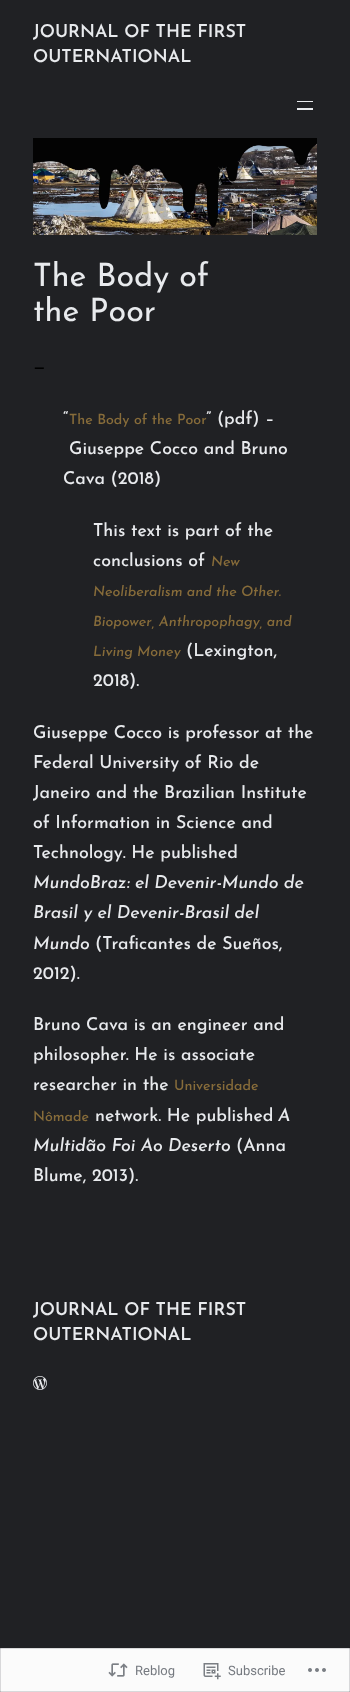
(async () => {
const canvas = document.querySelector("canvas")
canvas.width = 350
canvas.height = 1692
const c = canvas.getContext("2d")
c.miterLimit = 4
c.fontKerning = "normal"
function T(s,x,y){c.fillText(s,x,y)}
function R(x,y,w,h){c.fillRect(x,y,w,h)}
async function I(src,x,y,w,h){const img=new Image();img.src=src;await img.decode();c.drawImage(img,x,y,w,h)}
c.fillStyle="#202124"
R(0,0,350,1692)
c.font="600 17.75px Josefin Sans"
c.fillStyle="#e8eaed"
T("JOURNAL OF THE FIRST",33,37)
T("OUTERNATIONAL",33,62)
R(297,101,16,1)
R(297,108,16,2)
await I("1.png",33,138,284,97)
c.font="32.25px Josefin Sans"
T("The Body of",33,286)
T("the Poor",33,321)
c.font="500 17.75px Josefin Sans"
c.fillStyle="#000"
T("—",33,372)
c.fillStyle="#e8eaed"
T("“",63,424)
T("” (pdf) –",206,424)
c.font="500 14.2px Josefin Sans"
c.fillStyle="#876c3a"
T("The Body of the Poor",69,424)
c.font="500 17.75px Josefin Sans"
c.fillStyle="#e8eaed"
T("Giuseppe Cocco and Bruno",69,454)
T("Cava (2018)",63,484)
T("This text is part of the",93,536)
T("conclusions of",93,566)
c.font="italic 500 14.2px Josefin Sans"
c.fillStyle="#876c3a"
T("New",211,566)
T("Neoliberalism and the Other.",93,596)
T("Biopower, Anthropophagy, and",93,626)
T("Living Money",93,656)
c.font="500 17.75px Josefin Sans"
c.fillStyle="#e8eaed"
T("(Lexington,",186,656)
T("2018).",93,686)
T("Giuseppe Cocco is professor at the",33,738)
T("Federal University of Rio de",33,768)
T("Janeiro and the Brazilian Institute",33,798)
T("of Information in Science and",33,828)
T("Technology. He published",33,858)
c.font="italic 500 17.75px Josefin Sans"
T("MundoBraz: el Devenir-Mundo de",33,888)
T("Brasil y el Devenir-Brasil del",33,918)
T("Mundo",33,949)
c.font="500 17.75px Josefin Sans"
T("(Traficantes de Sueños,",95,949)
T("2012).",33,979)
T("Bruno Cava is an engineer and",33,1030)
T("philosopher. He is associate",33,1060)
T("researcher in the",33,1090)
c.font="500 14.2px Josefin Sans"
c.fillStyle="#876c3a"
T("Universidade",174,1090)
T("Nômade",33,1121)
c.font="500 17.75px Josefin Sans"
c.fillStyle="#e8eaed"
T("network. He published",95,1121)
c.font="italic 500 17.75px Josefin Sans"
T("A",278,1121)
T("Multidão Foi Ao Deserto",33,1151)
c.font="500 17.75px Josefin Sans"
T("(Anna",236,1151)
T("Blume, 2013).",33,1181)
c.font="600 17.75px Josefin Sans"
T("JOURNAL OF THE FIRST",33,1315)
T("OUTERNATIONAL",33,1340)
await I("2.png",33,1376,14,14)
c.fillStyle="#fbfbfb"
c.beginPath()
c.rect(.5,1648.5,349,43)
c.fill()
c.strokeStyle="#d8d8da"
c.stroke()
await I("3.png",108,1663,20,14)
c.font="13px Roboto"
c.fillStyle="#767a80"
T("Reblog",135,1675)
await I("4.png",203,1663,18,17)
T("Subscribe",228,1675)
await I("5.png",308,1668,18,4)
})()
